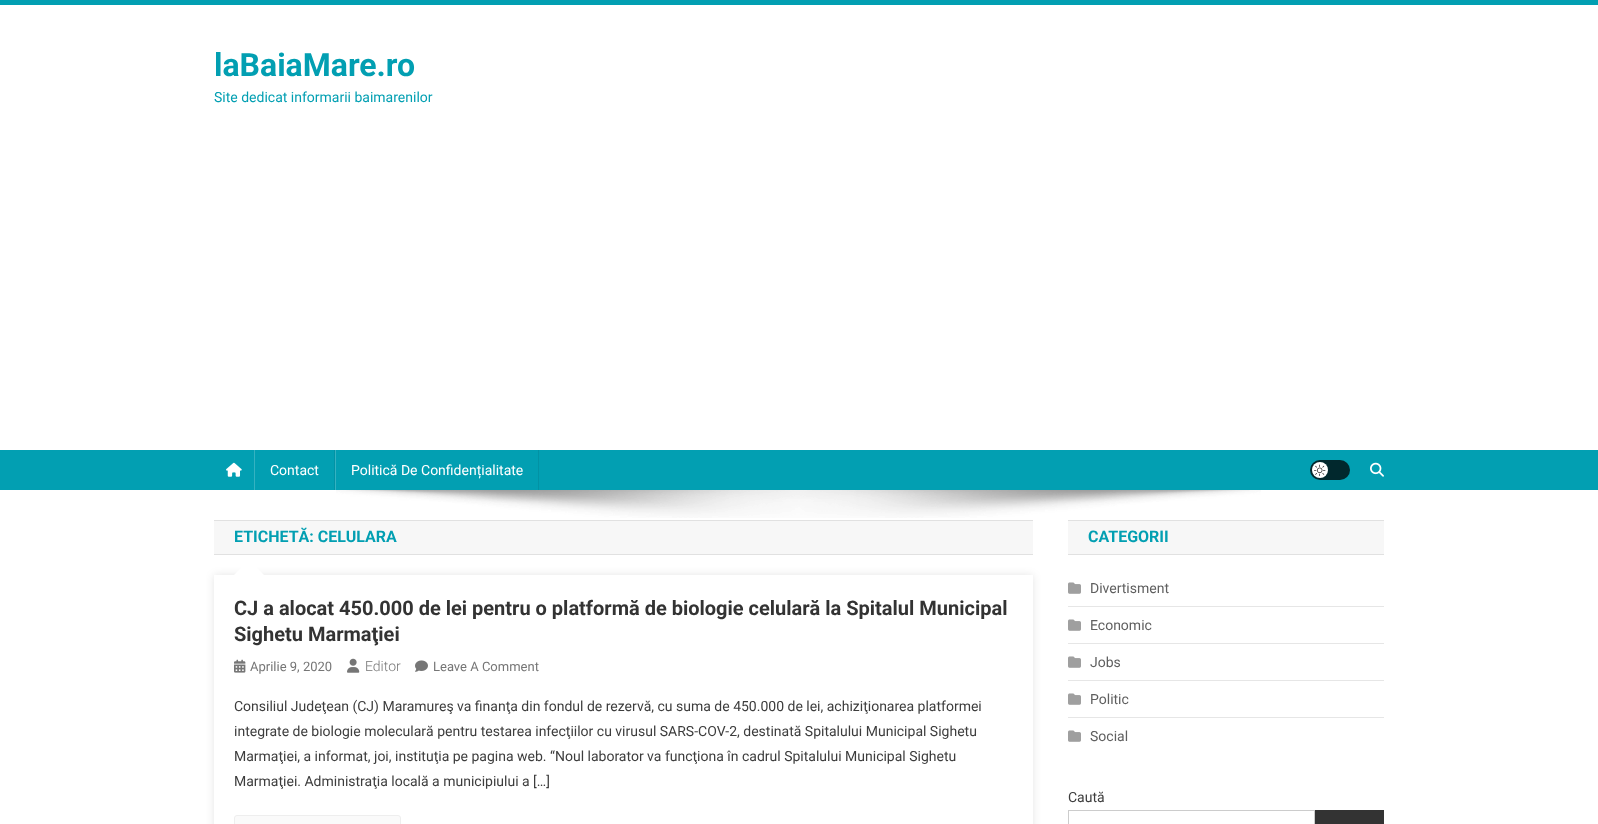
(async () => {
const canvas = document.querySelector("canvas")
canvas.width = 1598
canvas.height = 824
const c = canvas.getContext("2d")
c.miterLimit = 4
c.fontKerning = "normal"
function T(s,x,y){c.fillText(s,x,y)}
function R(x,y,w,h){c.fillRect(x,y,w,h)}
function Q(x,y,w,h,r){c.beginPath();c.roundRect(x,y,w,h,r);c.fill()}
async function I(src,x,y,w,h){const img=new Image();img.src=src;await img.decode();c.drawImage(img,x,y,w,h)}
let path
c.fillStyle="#fff"
R(0,0,1598,824)
c.fillStyle="#029fb2"
R(0,0,1598,5)
c.font="bold 32px Roboto"
T("laBaiaMare.ro",214,76)
c.font="14px Roboto"
T("Site dedicat informarii baimarenilor",214,102)
R(0,450,1598,40)
await I("1.png",226,462,16,15)
c.fillStyle="#0292a4"
R(334,450,1,40)
c.fillStyle="#35b2c1"
R(254,450,1,40)
c.fillStyle="#fff"
T("Contact",270,475)
c.fillStyle="#0292a4"
R(538,450,1,40)
c.fillStyle="#35b2c1"
R(335,450,1,40)
c.fillStyle="#fff"
T("Politică De Confidențialitate",351,475)
c.fillStyle="#01282d"
Q(1310,460,40,20,10)
c.fillStyle="#fff"
c.beginPath()
c.arc(1320,470,8,0,7)
c.fill()
await I("2.png",1314,464,12,12)
await I("3.png",1370,462,14,15)
await I("4.png",336,490,925,28)
c.fillStyle="#f7f7f7"
R(214,521,819,33)
c.fillStyle="#e1e1e1"
R(214,520,819,1)
R(214,554,819,1)
c.font="bold 16px Roboto"
c.fillStyle="#029fb2"
T("ETICHETĂ: CELULARA",234,542)
c.save()
path = new Path2D("M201 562h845v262h-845zm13 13h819v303h-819z")
c.clip(path,"evenodd")
c.fillStyle="#0000001a"
c.filter="blur(4px)"
c.beginPath()
c.rect(214,575,819,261)
c.fill()
c.filter="none"
c.restore()
c.fillStyle="#fff"
path = new Path2D("M264 575h-30l15-15z")
c.fill(path)
c.font="bold 20px Roboto"
c.fillStyle="#333"
T("CJ a alocat 450.000 de lei pentru o platformă de biologie celulară la Spitalul Municipal",234,615)
T("Sighetu Marmaţiei",234,641)
await I("5.png",234,659,12,14)
c.font="13px Roboto"
c.fillStyle="#767676"
T("Aprilie 9, 2020",250,671)
await I("6.png",347,658,13,15)
c.font="300 14px Roboto"
T("Editor",365,671)
await I("7.png",415,660,13,12)
c.font="13px Roboto"
T("Leave A Comment",433,671)
c.font="14px Roboto"
c.fillStyle="#3d3d3d"
T("Consiliul Judeţean (CJ) Maramureş va finanţa din fondul de rezervă, cu suma de 450.000 de lei, achiziţionarea platformei",234,711)
T("integrate de biologie moleculară pentru testarea infecţiilor cu virusul SARS-COV-2, destinată Spitalului Municipal Sighetu",234,736)
T("Marmaţiei, a informat, joi, instituţia pe pagina web. “Noul laborator va funcţiona în cadrul Spitalului Municipal Sighetu",234,761)
T("Marmaţiei. Administraţia locală a municipiului a […]",234,786)
c.fillStyle="#fafafa"
c.beginPath()
c.roundRect(234.5,815.5,166,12,2.5)
c.fill()
c.strokeStyle="#eee"
c.stroke()
c.fillStyle="#f7f7f7"
R(1068,521,316,33)
c.fillStyle="#e1e1e1"
R(1068,520,316,1)
R(1068,554,316,1)
c.font="bold 16px Roboto"
c.fillStyle="#029fb2"
T("CATEGORII",1088,542)
c.fillStyle="#e6e6e6"
R(1068,606,316,1)
await I("8.png",1068,582,13,12)
c.font="14px Roboto"
c.fillStyle="#5f5f5f"
T("Divertisment",1090,593)
c.fillStyle="#e6e6e6"
R(1068,643,316,1)
await I("8.png",1068,619,13,12)
c.fillStyle="#5f5f5f"
T("Economic",1090,630)
c.fillStyle="#e6e6e6"
R(1068,680,316,1)
await I("8.png",1068,656,13,12)
c.fillStyle="#5f5f5f"
T("Jobs",1090,667)
c.fillStyle="#e6e6e6"
R(1068,717,316,1)
await I("8.png",1068,693,13,12)
c.fillStyle="#5f5f5f"
T("Politic",1090,704)
await I("8.png",1068,730,13,12)
T("Social",1090,741)
c.fillStyle="#3d3d3d"
T("Caută",1068,802)
c.strokeStyle="#ccc"
c.strokeRect(1068.5,810.5,246,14)
c.fillStyle="#333"
R(1315,810,69,14)
})()
